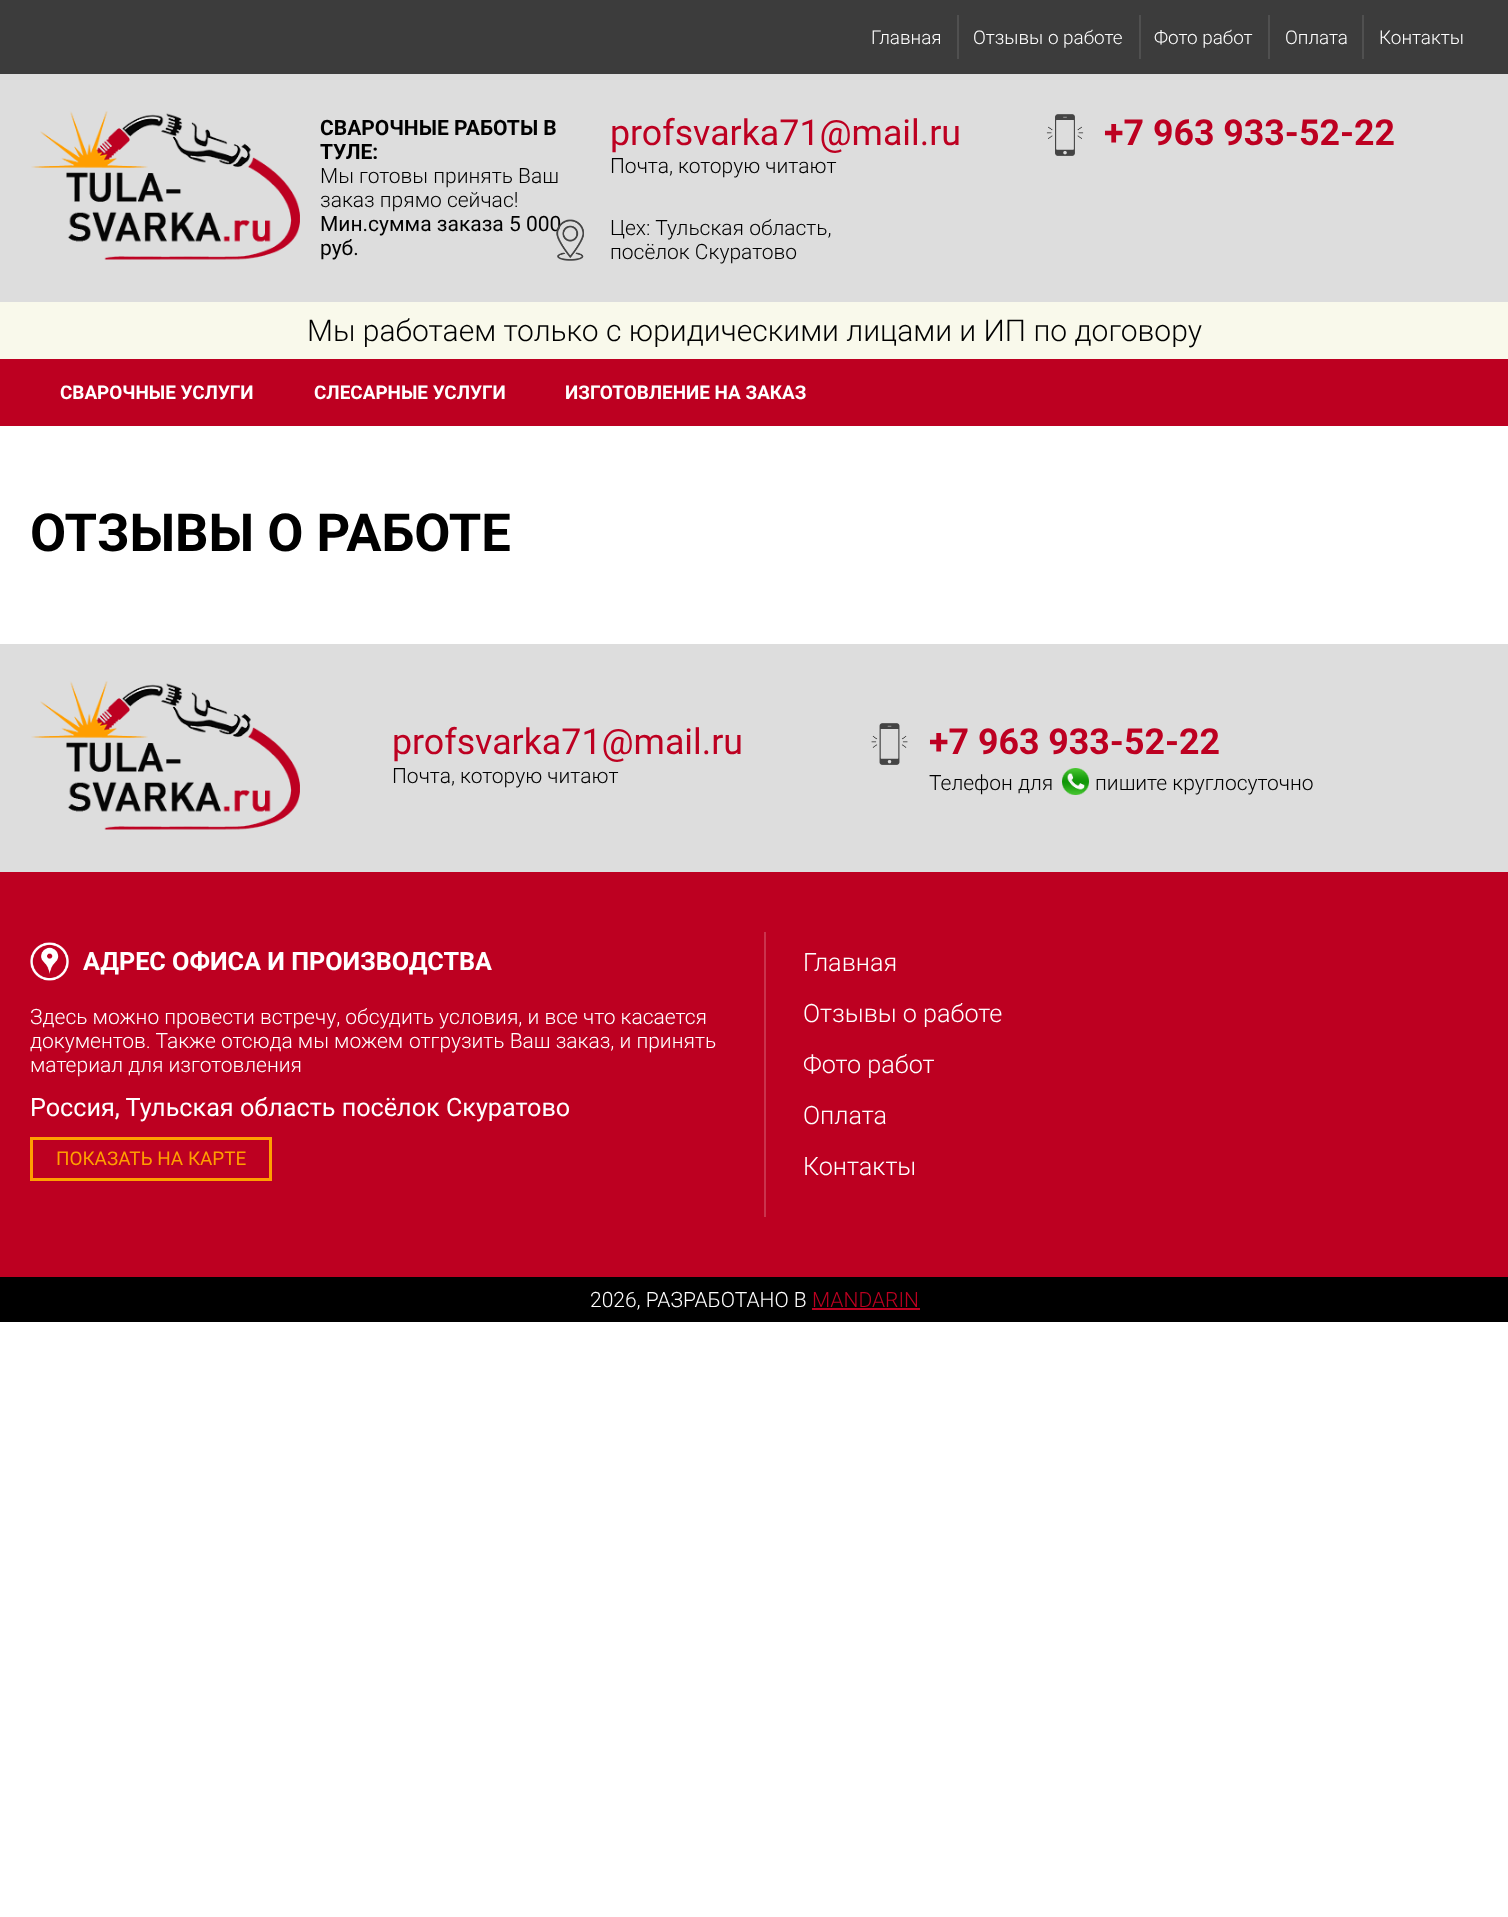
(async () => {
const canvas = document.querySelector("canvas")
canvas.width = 1508
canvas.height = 1917
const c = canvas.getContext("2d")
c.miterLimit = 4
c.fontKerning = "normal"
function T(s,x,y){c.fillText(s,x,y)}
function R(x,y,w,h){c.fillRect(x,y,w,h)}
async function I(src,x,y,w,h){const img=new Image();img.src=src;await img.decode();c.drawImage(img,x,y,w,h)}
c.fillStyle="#fff"
R(0,0,1508,1917)
c.fillStyle="#3c3c3c"
R(0,0,1508,74)
c.fillStyle="#505050"
R(957,15,2,44)
c.font="300 18.9px Roboto"
c.fillStyle="#fff"
T("Главная",871,44)
c.fillStyle="#505050"
R(1139,15,2,44)
c.fillStyle="#fff"
T("Отзывы о работе",973,44)
c.fillStyle="#505050"
R(1268,15,2,44)
c.fillStyle="#fff"
T("Фото работ",1154,44)
c.fillStyle="#505050"
R(1362,15,2,44)
c.fillStyle="#fff"
T("Оплата",1285,44)
T("Контакты",1379,44)
c.fillStyle="#ddd"
R(0,74,1508,228)
await I("1.png",31,111,269,149)
c.font="bold 21px Roboto"
c.fillStyle="#000"
T("СВАРОЧНЫЕ РАБОТЫ В",320,135)
T("ТУЛЕ:",320,159)
c.font="300 21px Roboto"
T("Мы готовы принять Ваш",320,183)
T("заказ прямо сейчас!",320,207)
c.font="21px Roboto"
T("Мин.сумма заказа 5 000",320,231)
T("руб.",320,255)
c.font="35.75px Roboto"
c.fillStyle="#bd0021"
T("profsvarka71@mail.ru",610,145)
c.font="300 21px Roboto"
c.fillStyle="#000"
T("Почта, которую читают",610,173)
await I("2.png",556,219,28,42)
T("Цех: Тульская область,",610,235)
T("посёлок Скуратово",610,259)
await I("3.png",1046,114,38,42)
c.font="bold 35.75px Roboto"
c.fillStyle="#bd0021"
T("+7 963 933-52-22",1104,145)
c.fillStyle="#f9f9eb"
R(0,302,1508,57)
c.font="300 30px Roboto"
c.fillStyle="#000"
T("Мы работаем только с юридическими лицами и ИП по договору",307,341)
c.fillStyle="#bd0021"
R(0,359,1508,67)
c.font="bold 18.9px Roboto"
c.fillStyle="#fff"
T("СВАРОЧНЫЕ УСЛУГИ",60,399)
T("СЛЕСАРНЫЕ УСЛУГИ",314,399)
T("ИЗГОТОВЛЕНИЕ НА ЗАКАЗ",565,399)
c.font="bold 52.5px Roboto"
c.fillStyle="#000"
T("ОТЗЫВЫ О РАБОТЕ",30,551)
c.fillStyle="#ddd"
R(0,644,1508,228)
await I("4.png",31,681,269,149)
c.font="35.75px Roboto"
c.fillStyle="#bd0021"
T("profsvarka71@mail.ru",392,754)
c.font="300 21px Roboto"
c.fillStyle="#000"
T("Почта, которую читают",392,783)
await I("5.png",871,723,37,42)
c.font="bold 35.75px Roboto"
c.fillStyle="#bd0021"
T("+7 963 933-52-22",929,754)
c.font="300 21px Roboto"
c.fillStyle="#000"
T("Телефон для",929,790)
await I("6.png",1062,768,27,27)
T("пишите круглосуточно",1095,790)
c.fillStyle="#bd0021"
R(0,872,1508,405)
await I("7.png",30,942,39,39)
c.font="bold 25.2px Roboto"
c.fillStyle="#fff"
T("АДРЕС ОФИСА И ПРОИЗВОДСТВА",83,970)
c.font="300 21px Roboto"
T("Здесь можно провести встречу, обсудить условия, и все что касается",30,1024)
T("документов. Также отсюда мы можем",30,1048)
T("отгрузить Ваш заказ, и принять",409,1048)
T("материал для изготовления",30,1072)
c.font="25.2px Roboto"
T("Россия, Тульская область посёлок Скуратово",30,1116)
c.strokeStyle="#ff9e00"
c.lineWidth=3
c.strokeRect(31.5,1138.5,239,41)
c.font="18.9px Roboto"
c.fillStyle="#ff9e00"
T("ПОКАЗАТЬ НА КАРТЕ",56,1165)
c.fillStyle="#ca334d"
R(764,932,2,285)
c.font="300 25.2px Roboto"
c.fillStyle="#fff"
T("Главная",803,971)
T("Отзывы о работе",803,1022)
T("Фото работ",803,1073)
T("Оплата",803,1124)
T("Контакты",803,1175)
c.fillStyle="#000"
R(0,1277,1508,45)
c.font="300 21px Roboto"
c.fillStyle="#fff"
T("2026, РАЗРАБОТАНО В",590,1307)
c.fillStyle="#bd0021"
T("MANDARIN",812,1307)
R(812,1308,108,2)
})()
